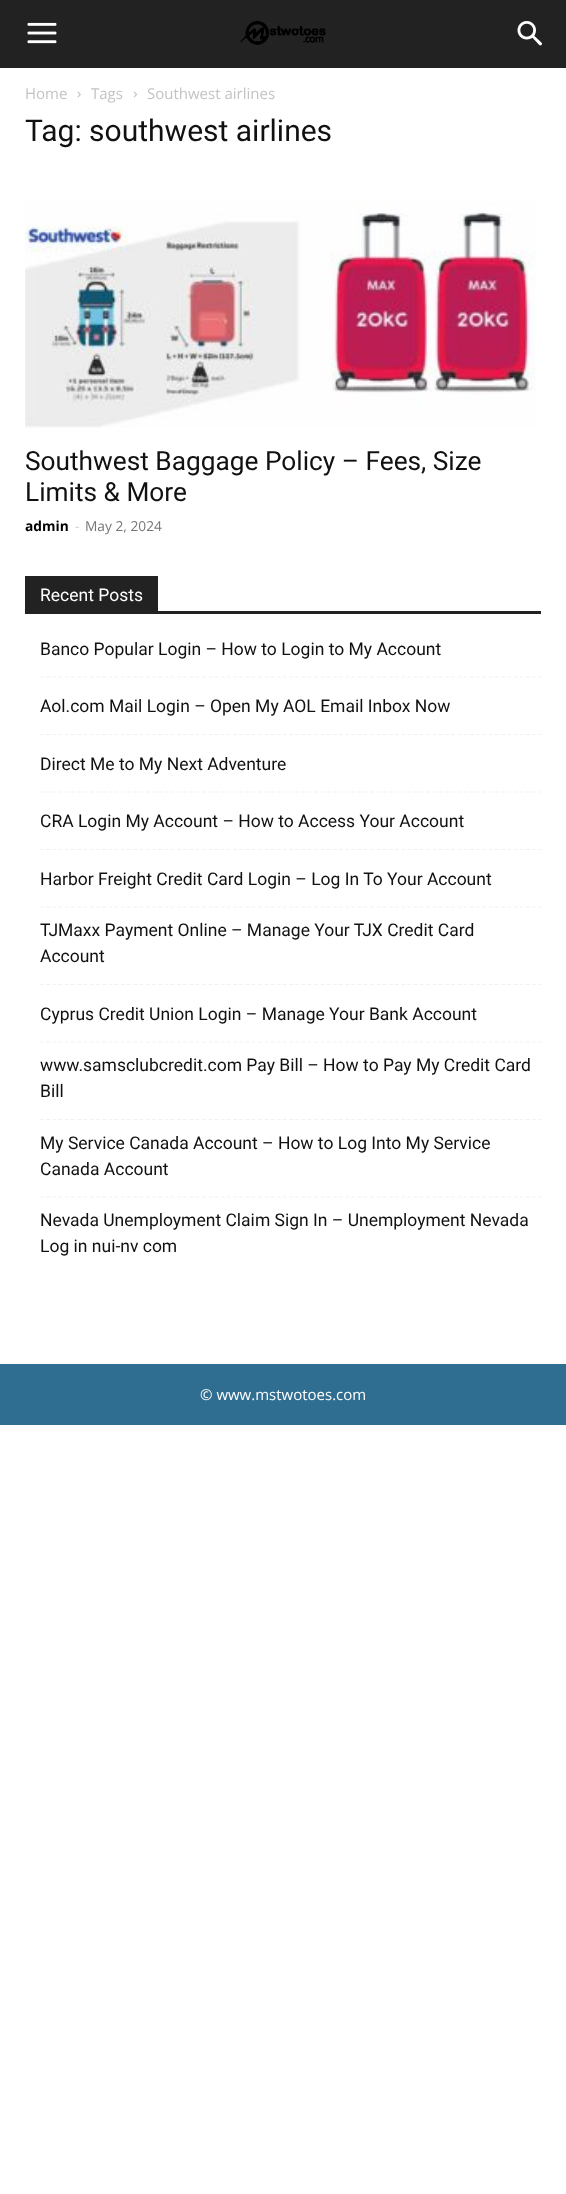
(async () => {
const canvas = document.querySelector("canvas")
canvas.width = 566
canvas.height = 2194
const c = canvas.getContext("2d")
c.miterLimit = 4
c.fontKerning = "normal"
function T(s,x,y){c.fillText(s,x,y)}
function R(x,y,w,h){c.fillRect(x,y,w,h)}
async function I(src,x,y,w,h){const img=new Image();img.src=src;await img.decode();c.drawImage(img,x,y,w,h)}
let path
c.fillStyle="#fff"
R(0,0,566,2194)
c.fillStyle="#222"
R(0,0,566,68)
await I("1.png",27,22,30,22)
await I("2.png",240,21,86,26)
await I("3.png",517,21,25,25)
c.font="15px Open Sans"
c.fillStyle="#c3c3c3"
T("Home",25,99)
await I("4.png",77,91,4,7)
T("Tags",91,99)
await I("5.png",133,91,4,7)
T("Southwest airlines",147,99)
c.font="30px Roboto"
c.fillStyle="#111"
T("Tag: southwest airlines",25,141)
await I("6.png",25,202,511,226)
c.font="26.25px Roboto"
T("Southwest Baggage Policy – Fees, Size",25,470)
T("Limits & More",25,501)
c.font="bold 13.75px Open Sans"
c.fillStyle="#000"
T("admin",25,531)
c.font="13.75px Open Sans"
c.fillStyle="#ccc"
T("-",75,531)
c.fillStyle="#767676"
T("May 2, 2024",85,531)
c.fillStyle="#222"
R(25,611,516,3)
R(25,576,133,35)
c.font="17.5px Roboto"
c.fillStyle="#fff"
T("Recent Posts",40,601)
path = new Path2D("M40 677h501")
c.strokeStyle="#f1f1f1"
c.lineWidth=1.2
c.setLineDash([3.75,2.48])
c.stroke(path)
c.fillStyle="#111"
T("Banco Popular Login – How to Login to My Account",40,655)
path = new Path2D("M40 734.5h501")
c.stroke(path)
T("Aol.com Mail Login – Open My AOL Email Inbox Now",40,712)
path = new Path2D("M40 792h501")
c.stroke(path)
T("Direct Me to My Next Adventure",40,770)
path = new Path2D("M40 849.5h501")
c.stroke(path)
T("CRA Login My Account – How to Access Your Account",40,827)
path = new Path2D("M40 907h501")
c.stroke(path)
T("Harbor Freight Credit Card Login – Log In To Your Account",40,885)
path = new Path2D("M40 984.5h501")
c.stroke(path)
T("TJMaxx Payment Online – Manage Your TJX Credit Card",40,936)
T("Account",40,962)
path = new Path2D("M40 1042h501")
c.stroke(path)
T("Cyprus Credit Union Login – Manage Your Bank Account",40,1020)
path = new Path2D("M40 1119.5h501")
c.stroke(path)
T("www.samsclubcredit.com Pay Bill – How to Pay My Credit Card",40,1071)
T("Bill",40,1097)
path = new Path2D("M40 1197h501")
c.stroke(path)
T("My Service Canada Account – How to Log Into My Service",40,1149)
T("Canada Account",40,1175)
T("Nevada Unemployment Claim Sign In – Unemployment Nevada",40,1226)
T("Log in nui-nv com",40,1252)
c.fillStyle="#2f6e91"
R(0,1364,566,61)
c.font="15px Open Sans"
c.fillStyle="#fff"
T("© www.mstwotoes.com",200,1400)
})()
